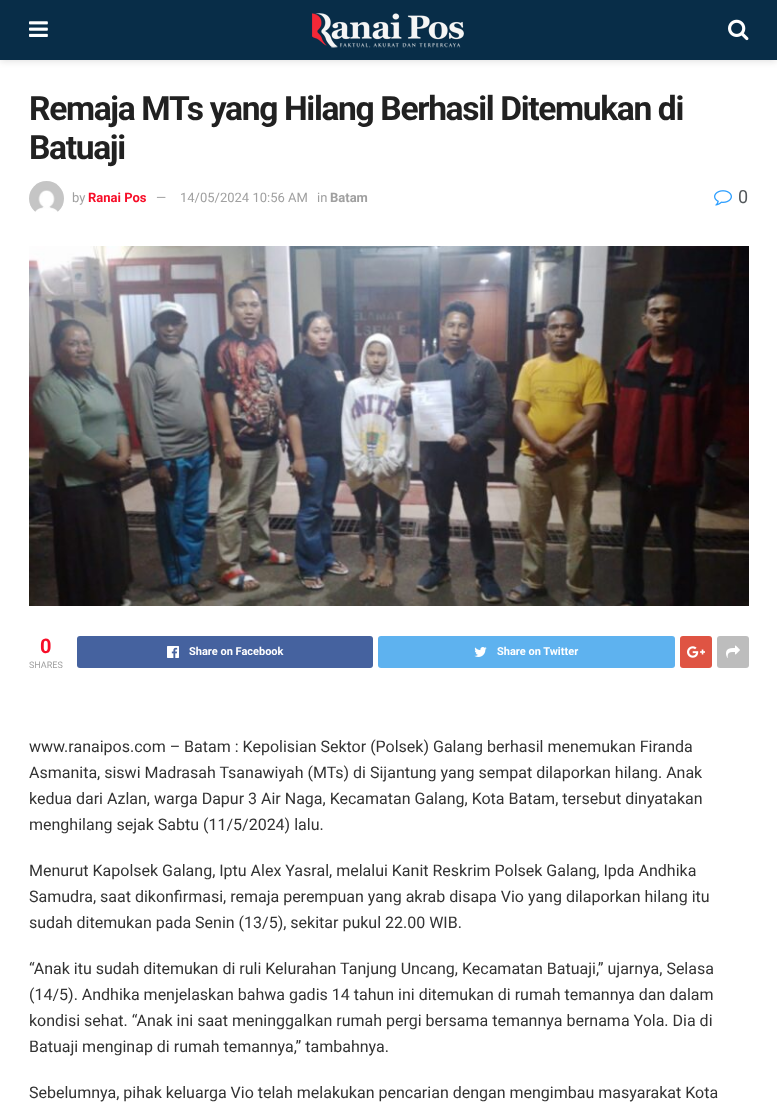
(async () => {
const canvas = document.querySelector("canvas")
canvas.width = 777
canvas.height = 1116
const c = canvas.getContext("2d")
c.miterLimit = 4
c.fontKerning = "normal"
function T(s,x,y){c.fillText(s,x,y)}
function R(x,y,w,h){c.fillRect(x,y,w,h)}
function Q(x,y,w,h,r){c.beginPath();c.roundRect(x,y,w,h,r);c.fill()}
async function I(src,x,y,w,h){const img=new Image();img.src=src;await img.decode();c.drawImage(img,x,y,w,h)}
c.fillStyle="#fff"
R(0,0,777,1116)
c.fillStyle="#0000001a"
c.filter="blur(3px)"
c.beginPath()
c.rect(0,2,777,60)
c.fill()
c.filter="none"
c.fillStyle="#082d48"
R(0,0,777,60)
await I("1.png",29,21,19,16)
await I("2.png",312,13,152,35)
await I("3.png",728,19,21,22)
c.letterSpacing="-1.35px"
c.font="bold 33.6px Roboto"
c.fillStyle="#212121"
T("Remaja MTs yang Hilang Berhasil Ditemukan di",29,120)
T("Batuaji",29,159)
await I("4.png",29,181,35,31)
c.letterSpacing="0px"
c.font="13px Roboto"
c.fillStyle="#a0a0a0"
T("by",72,202)
c.font="bold 13px Roboto"
c.fillStyle="#f70d28"
T("Ranai Pos",88,202)
c.font="13px Roboto"
c.fillStyle="#a0a0a0"
T("—",156,202)
T("14/05/2024 10:56 AM",180,202)
T("in",317,202)
c.font="bold 13px Roboto"
T("Batam",330,202)
await I("5.png",714,190,18,16)
c.font="18px Roboto"
c.fillStyle="#53585c"
T("0",738,203)
await I("6.png",29,246,720,360)
c.font="bold 20px Roboto"
c.fillStyle="#f70d28"
T("0",40,653)
c.font="9px Roboto"
c.fillStyle="#a0a0a0"
T("SHARES",29,668)
c.fillStyle="#45629f"
Q(77,636,296,32,3)
await I("7.png",167,646,12,12)
c.font="bold 11px Roboto"
c.fillStyle="#fff"
T("Share on Facebook",189,655)
c.fillStyle="#5eb2ef"
Q(378,636,297,32,3)
await I("8.png",474,647,13,10)
c.fillStyle="#fff"
T("Share on Twitter",497,655)
c.fillStyle="#df5443"
Q(680,636,32,32,3)
await I("9.png",687,646,18,12)
c.fillStyle="#bdbdbd"
Q(717,636,32,32,3)
await I("10.png",726,645,14,13)
c.font="16px Roboto"
c.fillStyle="#333"
T("www.ranaipos.com – Batam : Kepolisian Sektor (Polsek) Galang berhasil menemukan Firanda",29,752)
T("Asmanita, siswi Madrasah Tsanawiyah (MTs) di Sijantung yang sempat dilaporkan hilang. Anak",29,778)
T("kedua dari Azlan, warga Dapur 3 Air Naga, Kecamatan Galang, Kota Batam, tersebut dinyatakan",29,804)
T("menghilang sejak Sabtu (11/5/2024) lalu.",29,830)
T("Menurut Kapolsek Galang, Iptu Alex Yasral, melalui Kanit Reskrim Polsek Galang, Ipda Andhika",29,876)
T("Samudra, saat dikonfirmasi, remaja perempuan yang akrab disapa Vio yang dilaporkan hilang itu",29,902)
T("sudah ditemukan pada Senin (13/5), sekitar pukul 22.00 WIB.",29,928)
T("“Anak itu sudah ditemukan di ruli Kelurahan Tanjung Uncang, Kecamatan Batuaji,” ujarnya, Selasa",29,974)
T("(14/5). Andhika menjelaskan bahwa gadis 14 tahun ini ditemukan di rumah temannya dan dalam",29,1000)
T("kondisi sehat. “Anak ini saat meninggalkan rumah pergi bersama temannya bernama Yola. Dia di",29,1026)
T("Batuaji menginap di rumah temannya,” tambahnya.",29,1052)
T("Sebelumnya, pihak keluarga Vio telah melakukan pencarian dengan mengimbau masyarakat Kota",29,1098)
})()
